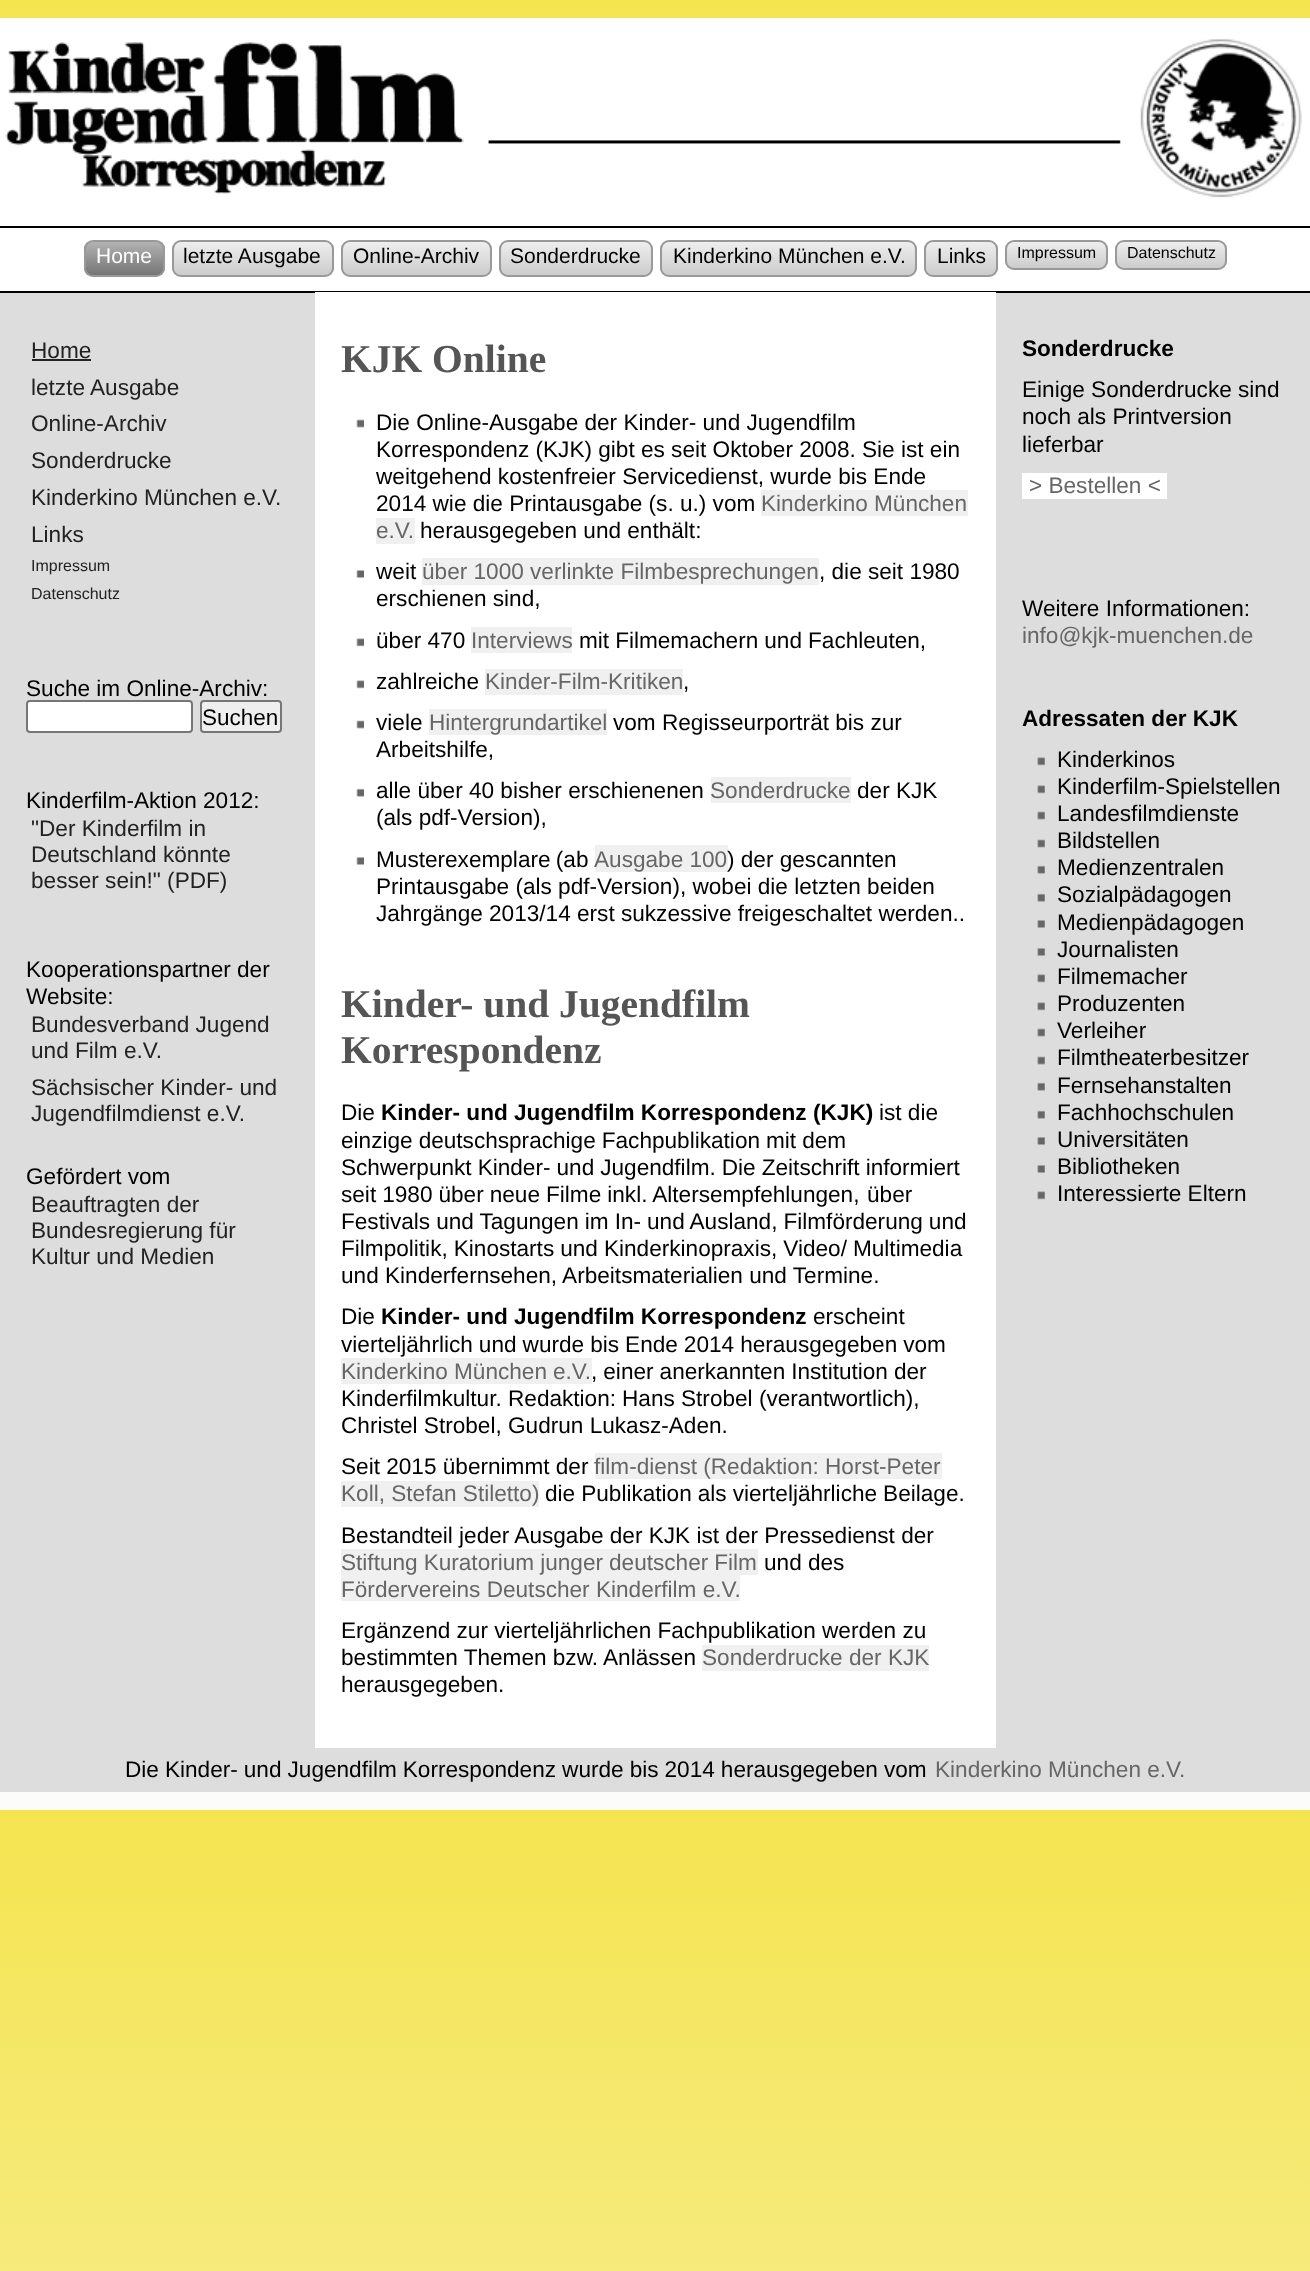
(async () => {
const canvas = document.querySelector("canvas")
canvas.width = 1310
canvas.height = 2271
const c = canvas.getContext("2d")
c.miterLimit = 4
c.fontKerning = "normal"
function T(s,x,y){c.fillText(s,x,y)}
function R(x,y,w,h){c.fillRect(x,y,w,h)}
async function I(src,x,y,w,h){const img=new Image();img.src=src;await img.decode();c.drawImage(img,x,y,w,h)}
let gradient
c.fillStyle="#fff"
R(0,0,1310,2271)
gradient = c.createLinearGradient(655,0,655,1810)
gradient.addColorStop(0,"#f4e450")
gradient.addColorStop(1,"#fcfcfc")
c.fillStyle = gradient
R(0,0,1310,1810)
gradient = c.createLinearGradient(655,1810,655,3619)
gradient.addColorStop(0,"#f4e450")
gradient.addColorStop(1,"#fcfcfc")
c.fillStyle = gradient
R(0,1810,1310,461)
c.fillStyle="#ddd"
R(0,293,1310,1499)
c.fillStyle="#fff"
R(0,18,1310,208)
await I("1.png",5,39,1297,159)
R(0,228,1310,63)
c.fillStyle="#000"
R(0,226,1310,2)
R(0,291,1310,2)
c.save()
c.beginPath()
c.roundRect(84,240,81,37,9)
c.clip()
gradient = c.createLinearGradient(124,242,124,275)
gradient.addColorStop(0,"#b2b2b2")
gradient.addColorStop(1,"#757575")
c.fillStyle = gradient
R(84,242,81,33)
c.restore()
c.beginPath()
c.roundRect(85,241,79,35,8)
c.strokeStyle="#999"
c.lineWidth=2
c.stroke()
c.font="21px Liberation Sans"
c.fillStyle="#fff"
T("Home",96,263)
c.save()
c.beginPath()
c.roundRect(172,240,162,37,9)
c.clip()
gradient = c.createLinearGradient(253,242,253,275)
gradient.addColorStop(0,"#eee")
gradient.addColorStop(1,"#ccc")
c.fillStyle = gradient
R(172,242,162,33)
c.restore()
c.beginPath()
c.roundRect(173,241,160,35,8)
c.stroke()
c.fillStyle="#000"
T("letzte Ausgabe",183,263)
c.save()
c.beginPath()
c.roundRect(341,240,151,37,9)
c.clip()
gradient = c.createLinearGradient(417,242,417,275)
gradient.addColorStop(0,"#eee")
gradient.addColorStop(1,"#ccc")
c.fillStyle = gradient
R(341,242,151,33)
c.restore()
c.beginPath()
c.roundRect(342,241,149,35,8)
c.stroke()
T("Online-Archiv",353,263)
c.save()
c.beginPath()
c.roundRect(499,240,154,37,9)
c.clip()
gradient = c.createLinearGradient(576,242,576,275)
gradient.addColorStop(0,"#eee")
gradient.addColorStop(1,"#ccc")
c.fillStyle = gradient
R(499,242,154,33)
c.restore()
c.beginPath()
c.roundRect(500,241,152,35,8)
c.stroke()
T("Sonderdrucke",510,263)
c.save()
c.beginPath()
c.roundRect(660,240,257,37,9)
c.clip()
gradient = c.createLinearGradient(788,242,788,275)
gradient.addColorStop(0,"#eee")
gradient.addColorStop(1,"#ccc")
c.fillStyle = gradient
R(660,242,257,33)
c.restore()
c.beginPath()
c.roundRect(661,241,255,35,8)
c.stroke()
T("Kinderkino München e.V.",673,263)
c.save()
c.beginPath()
c.roundRect(924,240,74,37,9)
c.clip()
gradient = c.createLinearGradient(961,242,961,275)
gradient.addColorStop(0,"#eee")
gradient.addColorStop(1,"#ccc")
c.fillStyle = gradient
R(924,242,74,33)
c.restore()
c.beginPath()
c.roundRect(925,241,72,35,8)
c.stroke()
T("Links",937,263)
c.save()
c.beginPath()
c.roundRect(1005,240,103,30,9)
c.clip()
gradient = c.createLinearGradient(1056,242,1056,268)
gradient.addColorStop(0,"#eee")
gradient.addColorStop(1,"#ccc")
c.fillStyle = gradient
R(1005,242,103,26)
c.restore()
c.beginPath()
c.roundRect(1006,241,101,28,8)
c.stroke()
c.font="16px Liberation Sans"
T("Impressum",1017,258)
c.save()
c.beginPath()
c.roundRect(1115,240,112,30,9)
c.clip()
gradient = c.createLinearGradient(1171,242,1171,268)
gradient.addColorStop(0,"#eee")
gradient.addColorStop(1,"#ccc")
c.fillStyle = gradient
R(1115,242,112,26)
c.restore()
c.beginPath()
c.roundRect(1116,241,110,28,8)
c.stroke()
T("Datenschutz",1127,258)
c.font="22.6px Liberation Sans"
c.fillStyle="#222"
T("Home",31,358)
R(32,359,59,2)
T("letzte Ausgabe",31,395)
T("Online-Archiv",31,431)
T("Sonderdrucke",31,468)
T("Kinderkino München e.V.",31,505)
T("Links",31,542)
c.font="16px Liberation Sans"
T("Impressum",31,571)
T("Datenschutz",31,599)
c.font="22.6px Liberation Sans"
c.fillStyle="#000"
T("Suche im Online-Archiv:",26,696)
c.fillStyle="#fff"
c.beginPath()
c.roundRect(27,701,165,31,3)
c.fill()
c.strokeStyle="#767676"
c.stroke()
c.fillStyle="#efefef"
c.beginPath()
c.roundRect(201,701,80,31,3)
c.fill()
c.stroke()
c.font="22.5px Liberation Sans"
c.fillStyle="#000"
T("Suchen",202,725)
c.font="22.6px Liberation Sans"
T("Kinderfilm-Aktion 2012:",26,808)
c.fillStyle="#222"
T("\"Der Kinderfilm in",31,836)
T("Deutschland könnte",31,862)
T("besser sein!\" (PDF)",31,888)
c.fillStyle="#000"
T("Kooperationspartner der",26,977)
T("Website:",26,1004)
c.fillStyle="#222"
T("Bundesverband Jugend",31,1032)
T("und Film e.V.",31,1058)
T("Sächsischer Kinder- und",31,1095)
T("Jugendfilmdienst e.V.",31,1121)
c.fillStyle="#000"
T("Gefördert vom",26,1184)
c.fillStyle="#222"
T("Beauftragten der",31,1212)
T("Bundesregierung für",31,1238)
T("Kultur und Medien",31,1264)
c.fillStyle="#fff"
R(315,292,681,1456)
c.font="bold 39.5px Liberation Serif"
c.fillStyle="#555"
T("KJK Online",341,372)
await I("2.png",356,419,8,9)
c.font="22.6px Liberation Sans"
c.fillStyle="#000"
T("Die Online-Ausgabe der Kinder- und Jugendfilm",376,430)
T("Korrespondenz (KJK) gibt es seit Oktober 2008. Sie ist ein",376,457)
T("weitgehend kostenfreier Servicedienst, wurde bis Ende",376,484)
T("2014 wie die Printausgabe (s. u.) vom",376,511)
c.fillStyle="#f0f0f0"
R(761,490,207,26)
c.fillStyle="#666"
T("Kinderkino München",761,511)
c.fillStyle="#f0f0f0"
R(376,518,39,26)
c.fillStyle="#666"
T("e.V.",376,538)
c.fillStyle="#000"
T("herausgegeben und enthält:",420,538)
await I("3.png",356,570,8,8)
T("weit",376,579)
c.fillStyle="#f0f0f0"
R(422,558,397,27)
c.fillStyle="#666"
T("über 1000 verlinkte Filmbesprechungen",422,579)
c.fillStyle="#000"
T(", die seit 1980",819,579)
T("erschienen sind,",376,606)
await I("4.png",356,638,8,9)
T("über 470",376,648)
c.fillStyle="#f0f0f0"
R(471,627,101,26)
c.fillStyle="#666"
T("Interviews",471,648)
c.wordSpacing="-0.25px"
c.fillStyle="#000"
T("mit Filmemachern und Fachleuten,",579,648)
await I("4.png",356,680,8,9)
c.wordSpacing="0px"
T("zahlreiche",376,689)
c.fillStyle="#f0f0f0"
R(485,669,198,26)
c.fillStyle="#666"
T("Kinder-Film-Kritiken",485,689)
c.fillStyle="#000"
T(",",683,689)
await I("2.png",356,720,8,9)
T("viele",376,730)
c.fillStyle="#f0f0f0"
R(429,709,178,26)
c.fillStyle="#666"
T("Hintergrundartikel",429,730)
c.fillStyle="#000"
T("vom Regisseurporträt bis zur",613,730)
T("Arbeitshilfe,",376,757)
await I("5.png",356,788,8,9)
T("alle über 40 bisher erschienenen",376,798)
c.fillStyle="#f0f0f0"
R(711,777,140,26)
c.fillStyle="#666"
T("Sonderdrucke",710,798)
c.fillStyle="#000"
T("der KJK",857,798)
T("(als pdf-Version),",376,825)
await I("3.png",356,857,8,8)
c.wordSpacing="-1px"
T("Musterexemplare (ab",376,867)
c.fillStyle="#f0f0f0"
R(595,845,133,27)
c.wordSpacing="0px"
c.fillStyle="#666"
T("Ausgabe 100",594,867)
c.fillStyle="#000"
T(") der gescannten",727,867)
T("Printausgabe (als pdf-Version), wobei die letzten beiden",376,894)
T("Jahrgänge 2013/14 erst sukzessive freigeschaltet werden..",376,921)
c.font="bold 39.5px Liberation Serif"
c.fillStyle="#555"
T("Kinder- und Jugendfilm",341,1017)
T("Korrespondenz",341,1063)
c.font="22.6px Liberation Sans"
c.fillStyle="#000"
T("Die",341,1120)
c.font="bold 22.6px Liberation Sans"
T("Kinder- und Jugendfilm Korrespondenz",381,1120)
T("(KJK)",813,1120)
c.font="22.6px Liberation Sans"
T("ist die",879,1120)
c.wordSpacing="-0.25px"
T("einzige deutschsprachige Fachpublikation mit dem",341,1148)
T("Schwerpunkt Kinder- und Jugendfilm. Die Zeitschrift informiert",341,1175)
T("seit 1980 über neue Filme inkl. Altersempfehlungen,",341,1202)
c.wordSpacing="0px"
T("über",867,1202)
c.wordSpacing="-0.25px"
T("Festivals und Tagungen im In- und Ausland, Filmförderung und",341,1229)
T("Filmpolitik, Kinostarts und Kinderkinopraxis, Video/ Multimedia",341,1256)
c.wordSpacing="0px"
T("und",341,1283)
T("Kinderfernsehen, Arbeitsmaterialien und Termine.",385,1283)
T("Die",341,1324)
c.font="bold 22.6px Liberation Sans"
T("Kinder- und Jugendfilm Korrespondenz",381,1324)
c.font="22.6px Liberation Sans"
T("erscheint",813,1324)
c.wordSpacing="-0.25px"
T("vierteljährlich und wurde bis Ende 2014 herausgegeben vom",341,1352)
c.fillStyle="#f0f0f0"
R(341,1358,251,26)
c.wordSpacing="0px"
c.fillStyle="#666"
T("Kinderkino München",341,1379)
T("e.V.",553,1379)
c.wordSpacing="-0.25px"
c.fillStyle="#000"
T(", einer anerkannten Institution der",591,1379)
c.wordSpacing="0px"
T("Kinderfilmkultur. Redaktion:",341,1406)
T("Hans Strobel (verantwortlich),",622,1406)
T("Christel Strobel, Gudrun Lukasz-Aden.",341,1433)
T("Seit 2015 übernimmt der",341,1474)
c.fillStyle="#f0f0f0"
R(595,1453,347,26)
c.fillStyle="#666"
T("film-dienst (Redaktion: Horst-Peter",594,1474)
c.fillStyle="#f0f0f0"
R(341,1481,198,26)
c.fillStyle="#666"
T("Koll, Stefan Stiletto)",341,1501)
c.wordSpacing="-0.25px"
c.fillStyle="#000"
T("die Publikation als vierteljährliche Beilage.",545,1501)
c.wordSpacing="0px"
T("Bestandteil jeder Ausgabe der KJK ist der Pressedienst der",341,1543)
c.fillStyle="#f0f0f0"
R(341,1549,417,26)
c.wordSpacing="-0.25px"
c.fillStyle="#666"
T("Stiftung Kuratorium junger deutscher Film",341,1570)
c.wordSpacing="0px"
c.fillStyle="#000"
T("und des",764,1570)
c.fillStyle="#f0f0f0"
R(341,1575,399,26)
c.fillStyle="#666"
T("Fördervereins Deutscher Kinderfilm e.V.",341,1597)
c.fillStyle="#000"
T("Ergänzend zur vierteljährlichen Fachpublikation werden zu",341,1638)
T("bestimmten Themen bzw. Anlässen",341,1665)
c.fillStyle="#f0f0f0"
R(702,1645,227,26)
c.fillStyle="#666"
T("Sonderdrucke der KJK",702,1665)
c.fillStyle="#000"
T("herausgegeben.",341,1692)
c.font="bold 22.6px Liberation Sans"
T("Sonderdrucke",1022,356)
c.font="22.6px Liberation Sans"
T("Einige Sonderdrucke sind",1022,397)
T("noch als Printversion",1022,424)
T("lieferbar",1022,452)
c.fillStyle="#fff"
R(1022,473,145,26)
c.fillStyle="#666"
T("> Bestellen <",1029,493)
c.fillStyle="#000"
T("Weitere Informationen:",1022,616)
c.fillStyle="#666"
T("info@kjk-muenchen.de",1022,643)
c.font="bold 22.6px Liberation Sans"
c.fillStyle="#000"
T("Adressaten der KJK",1022,726)
await I("6.png",1037,757,8,9)
c.font="22.6px Liberation Sans"
T("Kinderkinos",1057,767)
await I("6.png",1037,785,8,9)
T("Kinderfilm-Spielstellen",1057,794)
await I("7.png",1037,811,8,9)
T("Landesfilmdienste",1057,821)
await I("7.png",1037,839,8,9)
T("Bildstellen",1057,848)
await I("8.png",1037,865,8,9)
T("Medienzentralen",1057,875)
await I("8.png",1037,893,8,9)
T("Sozialpädagogen",1057,902)
await I("9.png",1037,920,8,8)
T("Medienpädagogen",1057,930)
await I("9.png",1037,948,8,8)
T("Journalisten",1057,957)
await I("6.png",1037,974,8,9)
T("Filmemacher",1057,984)
await I("6.png",1037,1002,8,9)
T("Produzenten",1057,1011)
await I("7.png",1037,1028,8,9)
T("Verleiher",1057,1038)
await I("7.png",1037,1056,8,9)
T("Filmtheaterbesitzer",1057,1065)
await I("8.png",1037,1082,8,9)
T("Fernsehanstalten",1057,1093)
await I("8.png",1037,1110,8,9)
T("Fachhochschulen",1057,1120)
await I("9.png",1037,1137,8,8)
T("Universitäten",1057,1147)
await I("9.png",1037,1165,8,8)
T("Bibliotheken",1057,1174)
await I("6.png",1037,1191,8,9)
T("Interessierte Eltern",1057,1201)
c.wordSpacing="-0.25px"
T("Die Kinder- und Jugendfilm Korrespondenz wurde bis 2014 herausgegeben vom",125,1777)
c.wordSpacing="0px"
c.fillStyle="#666"
T("Kinderkino München e.V.",935,1777)
})()
